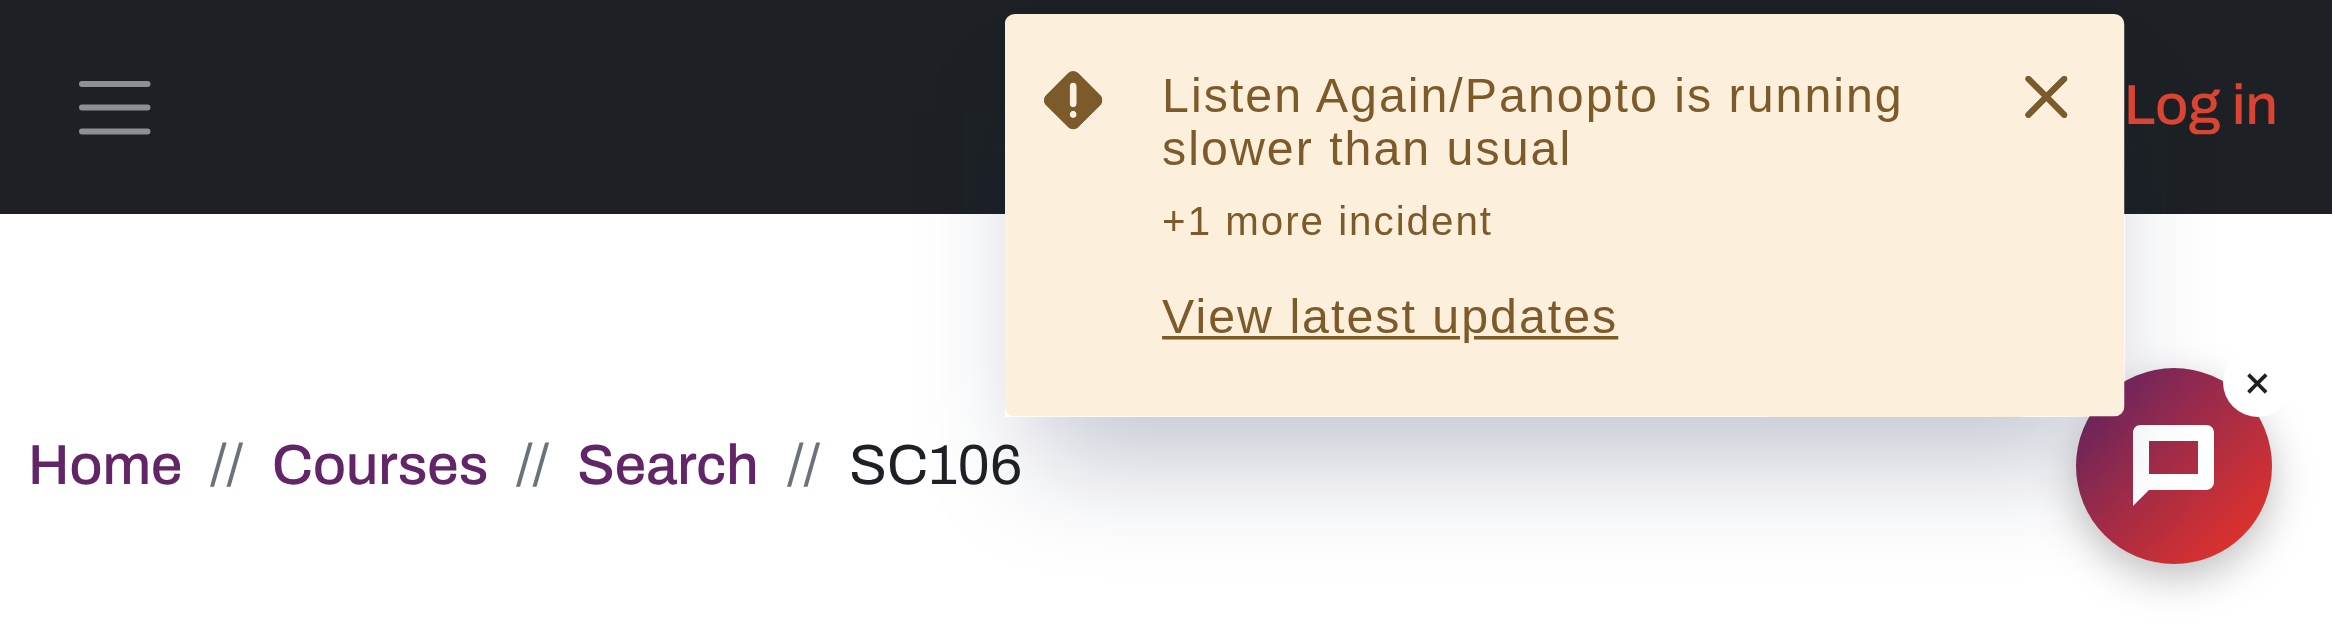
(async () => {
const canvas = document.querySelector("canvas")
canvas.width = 2332
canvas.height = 624
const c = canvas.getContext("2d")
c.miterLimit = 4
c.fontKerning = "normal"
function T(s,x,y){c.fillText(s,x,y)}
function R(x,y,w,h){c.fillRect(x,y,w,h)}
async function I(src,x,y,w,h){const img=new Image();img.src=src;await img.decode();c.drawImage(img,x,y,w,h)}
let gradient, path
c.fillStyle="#fff"
R(0,0,2332,624)
c.fillStyle="#1d2125"
R(0,0,2332,214)
c.fillStyle="#00000040"
c.filter="blur(21px)"
c.beginPath()
c.roundRect(2076,382,196,196,98)
c.fill()
c.filter="none"
gradient = c.createLinearGradient(2076,368,2272,564)
gradient.addColorStop(0,"#622567")
gradient.addColorStop(1,"#ee3424")
c.fillStyle = gradient
c.beginPath()
c.arc(2174,466,98,0,7)
c.fill()
c.fillStyle="#fff"
path = new Path2D("M2206 425h-65c-5 0-8 3-8 8v73l16-16h57c5 0 8-4 8-8v-49c0-5-3-8-8-8zm-8 49h-49v-33h49z")
c.fill(path)
c.beginPath()
c.arc(2258,382,35,0,7)
c.fill()
c.save()
path = new Path2D("M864 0h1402v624h-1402zm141 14h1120v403h-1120z")
c.clip(path,"evenodd")
c.fillStyle="#09144240"
c.filter="blur(56px)"
c.beginPath()
c.rect(1033,112,1064,347)
c.fill()
c.filter="none"
c.restore()
await I("1.png",1005,14,1120,403)
path = new Path2D("M82 84h65.5m-65.5 23.5h65.5m-65.5 24h65.5")
c.strokeStyle="#8e9092"
c.lineWidth=6
c.lineCap="round"
c.stroke(path)
c.font="500 56.5px Archivo"
c.fillStyle="#db4433"
T("Log in",2124,124)
c.fillStyle="#622567"
T("Home",28,484)
c.font="56.5px Archivo"
c.fillStyle="#6a737b"
T("//",210,484)
c.font="500 56.5px Archivo"
c.fillStyle="#622567"
T("Courses",272,484)
c.font="56.5px Archivo"
c.fillStyle="#6a737b"
T("//",516,484)
c.font="500 56.5px Archivo"
c.fillStyle="#622567"
T("Search",577,484)
c.font="56.5px Archivo"
c.fillStyle="#6a737b"
T("//",787,484)
c.fillStyle="#1d2125"
T("SC106",849,484)
c.font="49px Archivo"
T("×",2242,396)
})()
